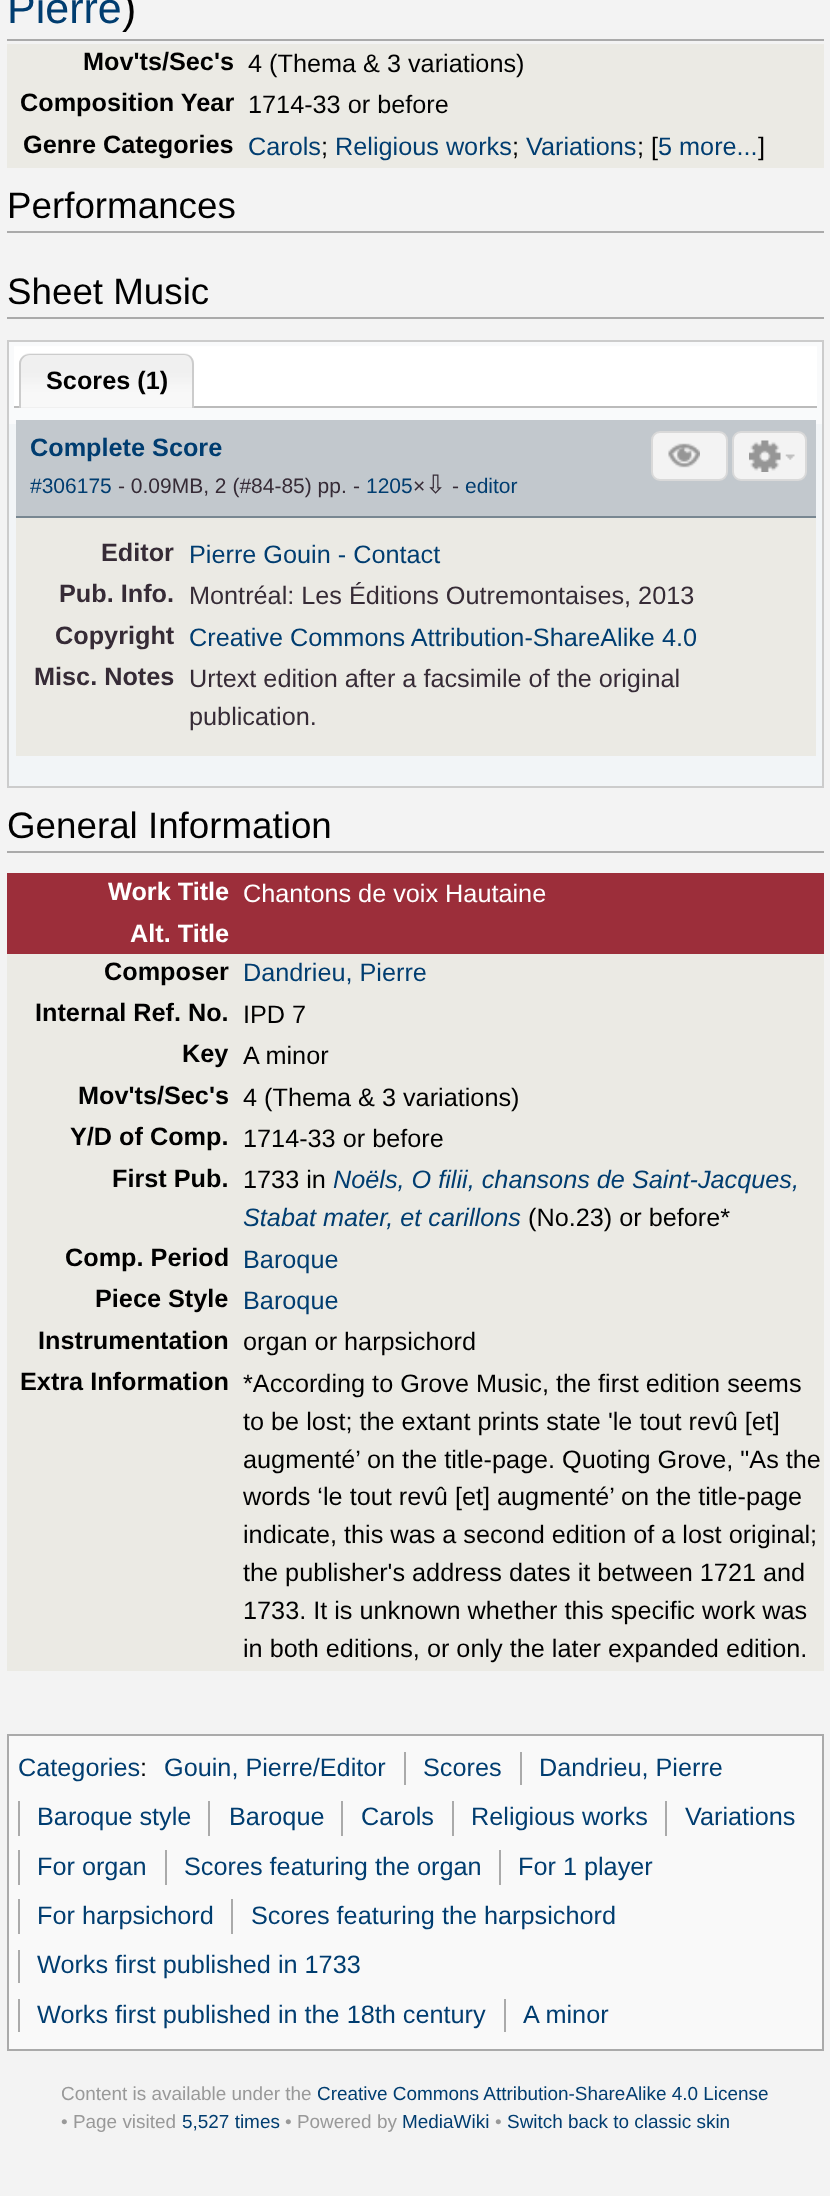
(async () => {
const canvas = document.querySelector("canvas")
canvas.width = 830
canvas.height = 2196
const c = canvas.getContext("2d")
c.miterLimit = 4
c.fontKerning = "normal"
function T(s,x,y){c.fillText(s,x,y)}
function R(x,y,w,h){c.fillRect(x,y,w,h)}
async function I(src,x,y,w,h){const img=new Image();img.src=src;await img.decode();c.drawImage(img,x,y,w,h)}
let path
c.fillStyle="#f3f3f3"
R(0,0,830,2196)
c.fillStyle="#aaa"
R(7,39,817,2)
c.font="43px Liberation Sans"
c.fillStyle="#003d70"
T("Pierre",7,23)
c.fillStyle="#000"
T(")",122,23)
c.fillStyle="#ebeae4"
R(7,44,817,124)
c.font="bold 25.25px Liberation Sans"
c.fillStyle="#000"
T("Mov'ts/Sec's",83,70)
c.font="25.25px Liberation Sans"
T("4 (Thema & 3 variations)",248,72)
c.font="bold 25.25px Liberation Sans"
T("Composition Year",20,111)
c.font="25.25px Liberation Sans"
T("1714-33 or before",248,113)
c.font="bold 25.25px Liberation Sans"
T("Genre Categories",23,153)
c.font="25.25px Liberation Sans"
c.fillStyle="#003d70"
T("Carols",248,155)
c.fillStyle="#000"
T(";",321,155)
c.fillStyle="#003d70"
T("Religious works",335,155)
c.fillStyle="#000"
T(";",512,155)
c.fillStyle="#003d70"
T("Variations",526,155)
c.fillStyle="#000"
T("; [",637,155)
c.fillStyle="#003d70"
T("5 more...",658,155)
c.fillStyle="#000"
T("]",758,155)
c.fillStyle="#aaa"
R(7,231,817,2)
c.font="36.75px Liberation Sans"
c.fillStyle="#000"
T("Performances",7,218)
c.fillStyle="#aaa"
R(7,317,817,2)
c.fillStyle="#000"
T("Sheet Music",7,304)
c.fillStyle="#f2f5f7"
R(9,424,813,362)
c.fillStyle="#f9fafb"
R(9,342,813,82)
c.strokeStyle="#ccc"
c.lineWidth=2
c.strokeRect(8,341,815,446)
c.fillStyle="#fff"
R(14,347,803,59)
c.fillStyle="#fefefe"
R(14,346,803,1)
c.fillStyle="#bbb"
R(14,406,803,2)
c.fillStyle="#f0f0f0"
c.beginPath()
c.roundRect(19,354,175,54,[11,11,0,0])
c.fill()
await I("1.png",19,353,176,54)
c.fillStyle="#ccc"
path = new Path2D("M30 354h154c6 0 10 4 10 10v44h-175v-44c0-6 5-10 11-10zm0 1h154c5 0 8 4 8 9v44h-171v-44c0-5 4-9 9-9z")
c.fill(path,"evenodd")
c.font="bold 25.25px Liberation Sans"
c.fillStyle="#000"
T("Scores (1)",46,389)
c.fillStyle="#c2c8cd"
R(16,420,800,96)
c.fillStyle="#788791"
R(16,516,800,2)
c.fillStyle="#003d70"
T("Complete Score",30,456)
c.font="21px Liberation Sans"
T("#306175",30,493)
c.fillStyle="#362b36"
T("- 0.09MB, 2 (#84-85) pp.",118,493)
T("-",353,493)
c.fillStyle="#003d70"
T("1205",366,493)
c.fillStyle="#362b36"
T("×",413,493)
c.font="25.25px DejaVu Sans"
T("⇩",425,493)
c.font="21px Liberation Sans"
T("-",452,493)
c.fillStyle="#003d70"
T("editor",465,493)
c.fillStyle="#f3f3f3"
c.beginPath()
c.roundRect(652,432,75,48,8)
c.fill()
c.strokeStyle="#d9d9d9"
c.stroke()
await I("2.png",668,443,32,25)
c.beginPath()
c.roundRect(733,432,73,48,8)
c.fill()
c.stroke()
await I("3.png",749,440,32,32)
await I("4.png",785,454,10,6)
c.fillStyle="#ebeae4"
R(16,518,800,238)
c.font="bold 25.25px Liberation Sans"
c.fillStyle="#362b36"
T("Editor",101,561)
c.font="25.25px Liberation Sans"
c.fillStyle="#003d70"
T("Pierre Gouin - Contact",189,563)
c.font="bold 25.25px Liberation Sans"
c.fillStyle="#362b36"
T("Pub. Info.",59,602)
c.font="25.25px Liberation Sans"
T("Montréal: Les Éditions Outremontaises, 2013",189,604)
c.font="bold 25.25px Liberation Sans"
T("Copyright",55,644)
c.font="25.25px Liberation Sans"
c.fillStyle="#003d70"
T("Creative Commons Attribution-ShareAlike 4.0",189,646)
c.font="bold 25.25px Liberation Sans"
c.fillStyle="#362b36"
T("Misc. Notes",34,685)
c.font="25.25px Liberation Sans"
T("Urtext edition after a facsimile of the original",189,687)
T("publication.",189,725)
c.fillStyle="#aaa"
R(7,851,817,2)
c.font="36.75px Liberation Sans"
c.fillStyle="#000"
T("General Information",7,838)
c.fillStyle="#ebeae4"
R(7,954,817,717)
c.fillStyle="#9c2e3a"
R(7,873,817,42)
c.font="bold 25.25px Liberation Sans"
c.fillStyle="#fff"
T("Work Title",108,900)
c.font="25.25px Liberation Sans"
T("Chantons de voix Hautaine",243,902)
c.fillStyle="#9c2e3a"
R(7,915,817,39)
c.font="bold 25.25px Liberation Sans"
c.fillStyle="#fff"
T("Alt. Title",130,942)
c.fillStyle="#000"
T("Composer",104,980)
c.font="25.25px Liberation Sans"
c.fillStyle="#003d70"
T("Dandrieu, Pierre",243,981)
c.font="bold 25.25px Liberation Sans"
c.fillStyle="#000"
T("Internal Ref. No.",35,1021)
c.font="25.25px Liberation Sans"
T("IPD 7",243,1023)
c.font="bold 25.25px Liberation Sans"
T("Key",182,1062)
c.font="25.25px Liberation Sans"
T("A minor",243,1064)
c.font="bold 25.25px Liberation Sans"
T("Mov'ts/Sec's",78,1104)
c.font="25.25px Liberation Sans"
T("4 (Thema & 3 variations)",243,1106)
c.font="bold 25.25px Liberation Sans"
T("Y/D of Comp.",70,1145)
c.font="25.25px Liberation Sans"
T("1714-33 or before",243,1147)
c.font="bold 25.25px Liberation Sans"
T("First Pub.",112,1187)
c.font="25.25px Liberation Sans"
T("1733 in",243,1188)
c.font="italic 25.25px Liberation Sans"
c.fillStyle="#003d70"
T("Noëls, O filii, chansons de Saint-Jacques,",333,1188)
T("Stabat mater, et carillons",243,1226)
c.font="25.25px Liberation Sans"
c.fillStyle="#000"
T("(No.23) or before*",528,1226)
c.font="bold 25.25px Liberation Sans"
T("Comp. Period",65,1266)
c.font="25.25px Liberation Sans"
c.fillStyle="#003d70"
T("Baroque",243,1268)
c.font="bold 25.25px Liberation Sans"
c.fillStyle="#000"
T("Piece Style",95,1307)
c.font="25.25px Liberation Sans"
c.fillStyle="#003d70"
T("Baroque",243,1309)
c.font="bold 25.25px Liberation Sans"
c.fillStyle="#000"
T("Instrumentation",38,1349)
c.font="25.25px Liberation Sans"
T("organ or harpsichord",243,1350)
c.font="bold 25.25px Liberation Sans"
T("Extra Information",20,1390)
c.font="25.25px Liberation Sans"
T("*According to Grove Music, the first edition seems",243,1392)
T("to be lost; the extant prints state 'le tout revû [et]",243,1430)
T("augmenté’ on the title-page. Quoting Grove, \"As the",243,1468)
T("words ‘le tout revû [et] augmenté’ on the title-page",243,1505)
T("indicate, this was a second edition of a lost original;",243,1543)
T("the publisher's address dates it between 1721 and",243,1581)
T("1733. It is unknown whether this specific work was",243,1619)
T("in both editions, or only the later expanded edition.",243,1657)
c.fillStyle="#f9f9f9"
c.beginPath()
c.rect(8,1735,815,315)
c.fill()
c.strokeStyle="#aaa"
c.stroke()
c.fillStyle="#003d70"
T("Categories",18,1776)
T("Gouin, Pierre/Editor",164,1776)
c.fillStyle="#aaa"
R(404,1752,2,33)
c.fillStyle="#003d70"
T("Scores",423,1776)
c.fillStyle="#aaa"
R(520,1752,2,33)
c.fillStyle="#003d70"
T("Dandrieu, Pierre",539,1776)
c.fillStyle="#aaa"
R(18,1801,2,35)
c.fillStyle="#003d70"
T("Baroque style",37,1825)
c.fillStyle="#aaa"
R(208,1801,2,35)
c.fillStyle="#003d70"
T("Baroque",229,1825)
c.fillStyle="#aaa"
R(341,1801,2,35)
c.fillStyle="#003d70"
T("Carols",361,1825)
c.fillStyle="#aaa"
R(452,1801,2,35)
c.fillStyle="#003d70"
T("Religious works",471,1825)
c.fillStyle="#aaa"
R(665,1801,2,35)
c.fillStyle="#003d70"
T("Variations",685,1825)
c.fillStyle="#aaa"
R(18,1850,2,35)
c.fillStyle="#003d70"
T("For organ",37,1875)
c.fillStyle="#aaa"
R(165,1850,2,35)
c.fillStyle="#003d70"
T("Scores featuring the organ",184,1875)
c.fillStyle="#aaa"
R(499,1850,2,35)
c.fillStyle="#003d70"
T("For 1 player",518,1875)
c.fillStyle="#aaa"
R(18,1899,2,35)
c.fillStyle="#003d70"
T("For harpsichord",37,1924)
c.fillStyle="#aaa"
R(231,1899,2,35)
c.fillStyle="#003d70"
T("Scores featuring the harpsichord",251,1924)
c.fillStyle="#aaa"
R(18,1950,2,33)
c.fillStyle="#003d70"
T("Works first published in 1733",37,1973)
c.fillStyle="#aaa"
R(18,1999,2,33)
c.fillStyle="#003d70"
T("Works first published in the 18th century",37,2023)
c.fillStyle="#aaa"
R(504,1999,2,33)
c.fillStyle="#003d70"
T("A minor",523,2023)
c.fillStyle="#000"
T(":",140,1776)
c.font="18.95px Liberation Sans"
c.fillStyle="#999"
T("Content is available under the",61,2100)
c.fillStyle="#003d70"
T("Creative Commons Attribution-ShareAlike 4.0 License",317,2100)
c.fillStyle="#999"
T("• Page visited",61,2128)
c.fillStyle="#003d70"
T("5,527 times",182,2128)
c.fillStyle="#999"
T("• Powered by",285,2128)
c.fillStyle="#003d70"
T("MediaWiki",402,2128)
c.fillStyle="#999"
T("•",495,2128)
c.fillStyle="#003d70"
T("Switch back to classic skin",507,2128)
})()
